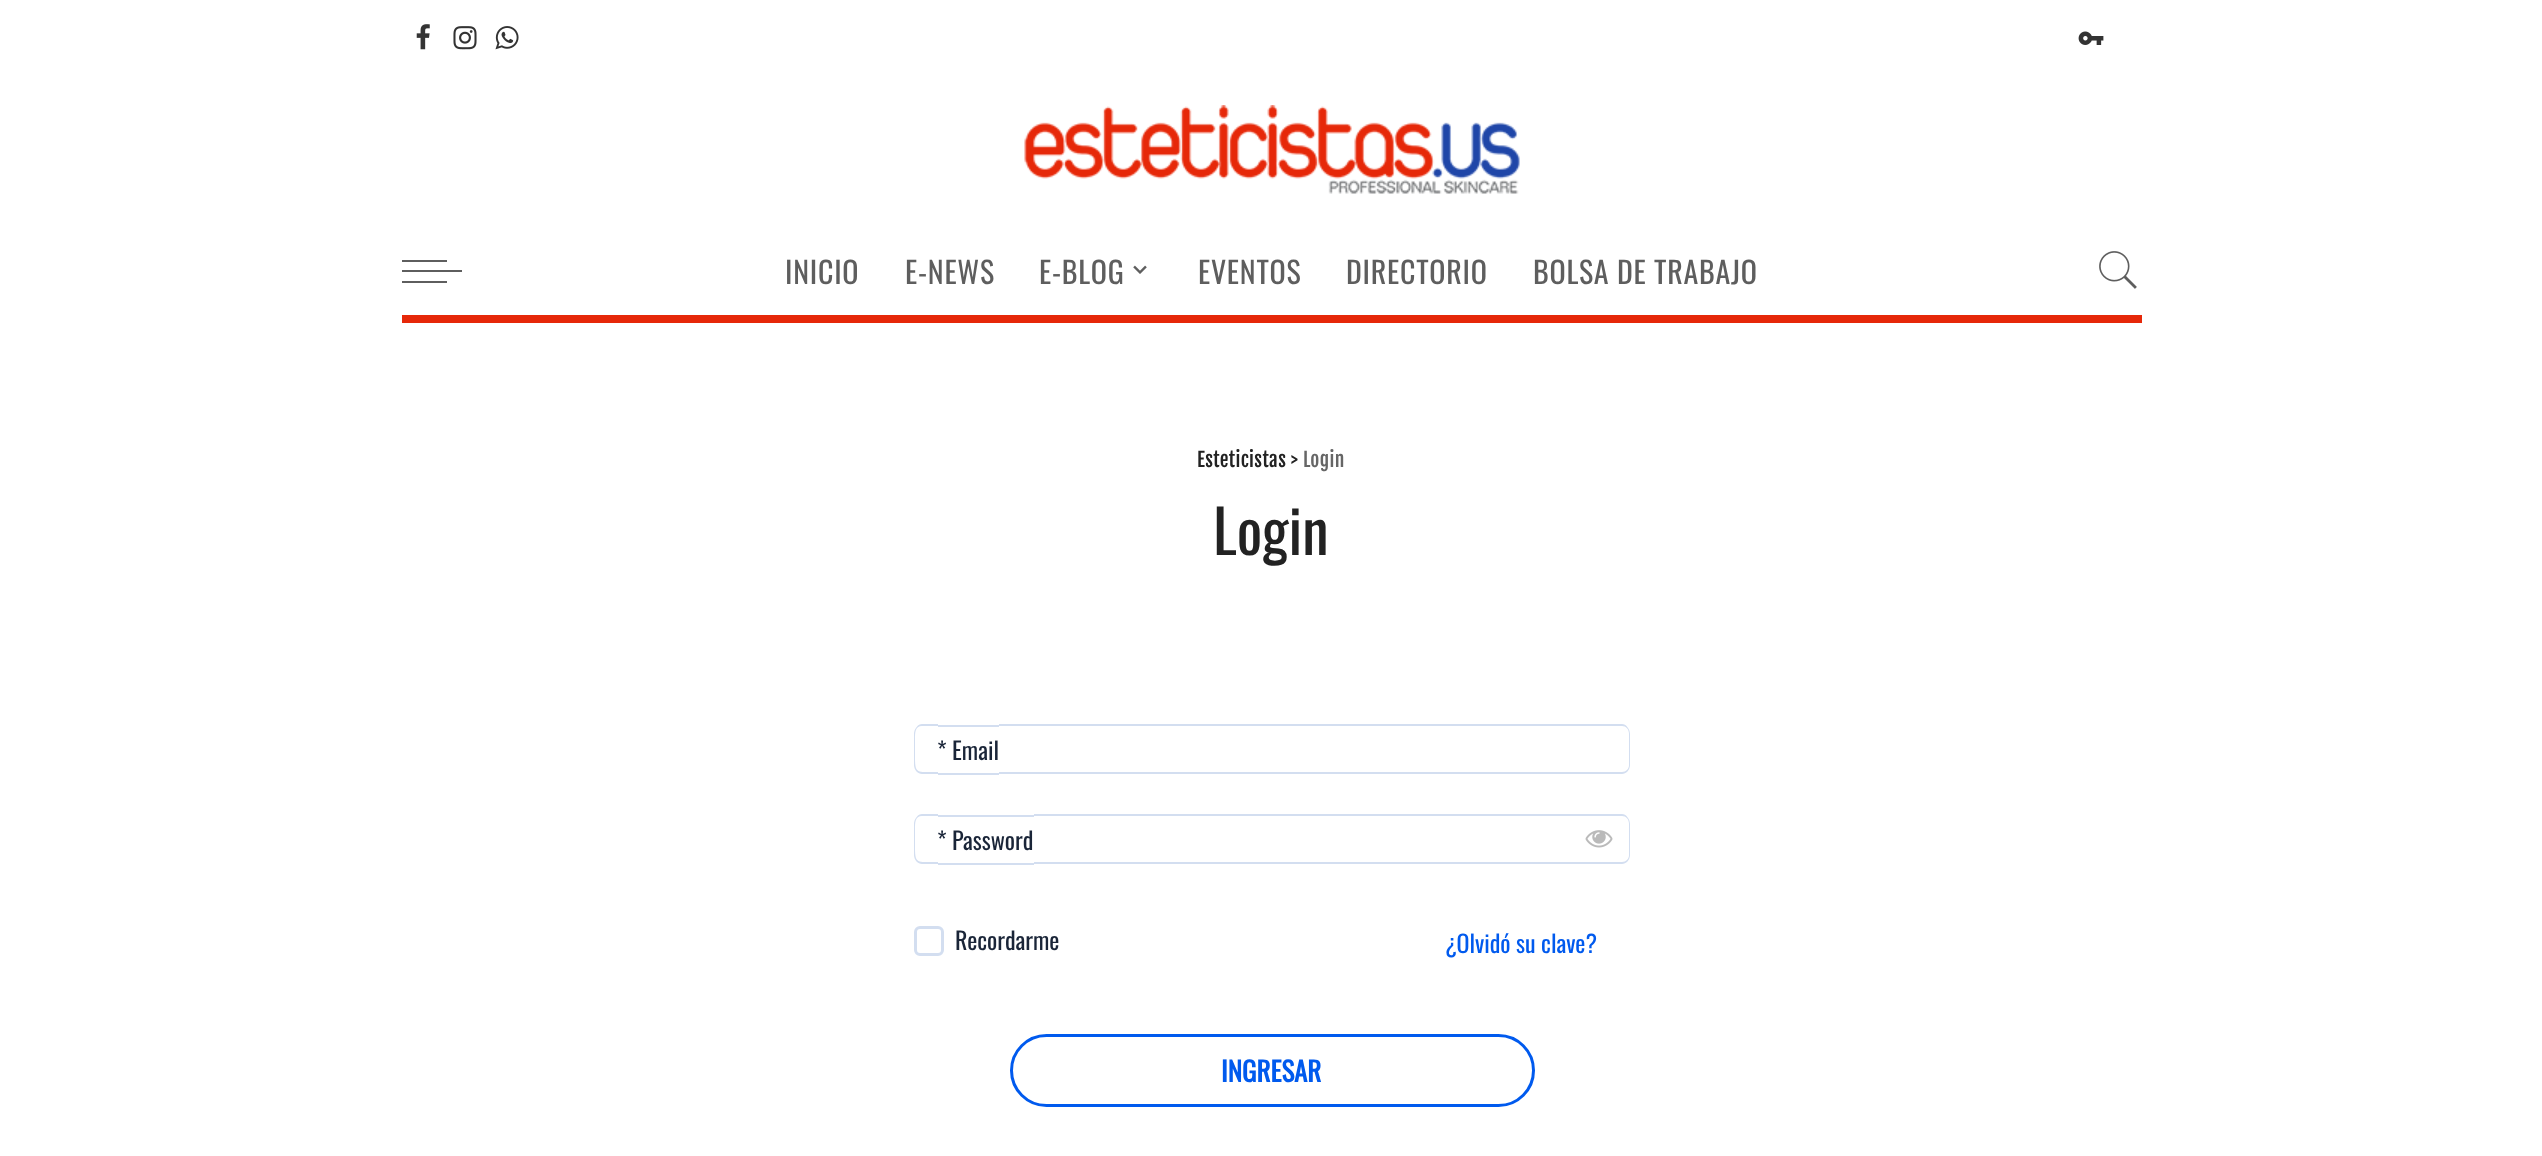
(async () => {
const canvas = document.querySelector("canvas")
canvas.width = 2542
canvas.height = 1156
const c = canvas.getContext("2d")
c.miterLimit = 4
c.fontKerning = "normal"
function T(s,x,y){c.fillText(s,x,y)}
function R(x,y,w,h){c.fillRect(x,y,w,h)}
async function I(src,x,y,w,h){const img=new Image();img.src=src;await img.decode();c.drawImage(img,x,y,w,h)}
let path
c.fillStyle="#fff"
R(0,0,2542,1156)
await I("1.png",416,24,14,26)
await I("2.png",453,26,24,24)
await I("3.png",495,26,24,24)
await I("4.png",2078,31,26,14)
await I("5.png",1024,105,496,89)
c.fillStyle="#e62809"
R(402,315,1740,8)
c.fillStyle="#5e5e5e"
R(402,270,60,2)
R(402,260,45,2)
R(402,281,45,2)
c.letterSpacing="0.75px"
c.font="30px Oswald"
T("INICIO",785,284)
T("E-NEWS",905,284)
T("E-BLOG",1039,284)
await I("6.png",1133,265,14,9)
T("EVENTOS",1198,284)
T("DIRECTORIO",1346,284)
T("BOLSA DE TRABAJO",1533,284)
await I("7.png",2099,251,38,38)
c.letterSpacing="0.4px"
c.font="19.5px Fjalla One"
c.fillStyle="#222"
T("Esteticistas >",1197,467)
c.fillStyle="#666"
T("Login",1303,467)
c.letterSpacing="0px"
c.font="60px Oswald"
c.fillStyle="#222"
T("Login",1213,555)
c.fillStyle="#d3def0"
path = new Path2D("M922 724h16v50h-16c-4 0-8-4-8-9v-31c0-5 4-10 8-10zm0 2h16v46c-24 0-23 3-23-23v-10c0-6 0-13 7-13z")
c.fill(path,"evenodd")
R(938,725,61,2)
R(938,773,61,2)
c.font="24px Oswald"
c.fillStyle="#1a2538"
T("* Email",937,760)
c.fillStyle="#d3def0"
path = new Path2D("M999 724h623c4 0 8 5 8 10v31c0 5-4 9-8 9h-623zm0 2h623c4 0 7 3 7 8v31c0 4-3 7-7 7h-623z")
c.fill(path,"evenodd")
path = new Path2D("M922 814h16v50h-16c-4 0-8-4-8-9v-31c0-5 4-10 8-10zm0 2h16v46c-24 0-23 3-23-23v-10c0-6 0-13 7-13z")
c.fill(path,"evenodd")
R(938,815,96,2)
R(938,863,96,2)
c.fillStyle="#1a2538"
T("* Password",937,850)
c.fillStyle="#d3def0"
path = new Path2D("M1034 814h588c4 0 8 5 8 10v31c0 5-4 9-8 9h-588zm0 2h588c4 0 7 3 7 8v31c0 4-3 7-7 7h-588z")
c.fill(path,"evenodd")
await I("8.png",1585,830,28,18)
c.beginPath()
c.roundRect(915.5,927.5,27,27,4.5)
c.strokeStyle="#d3def0"
c.lineWidth=3
c.stroke()
c.fillStyle="#1a2538"
T("Recordarme",955,950)
c.beginPath()
c.roundRect(1011.5,1035.5,522,70,35)
c.strokeStyle="#005aee"
c.stroke()
c.font="bold 27px Oswald"
c.fillStyle="#005aee"
T("INGRESAR",1221,1082)
c.font="24px Oswald"
T("¿Olvidó su clave?",1445,953)
})()
